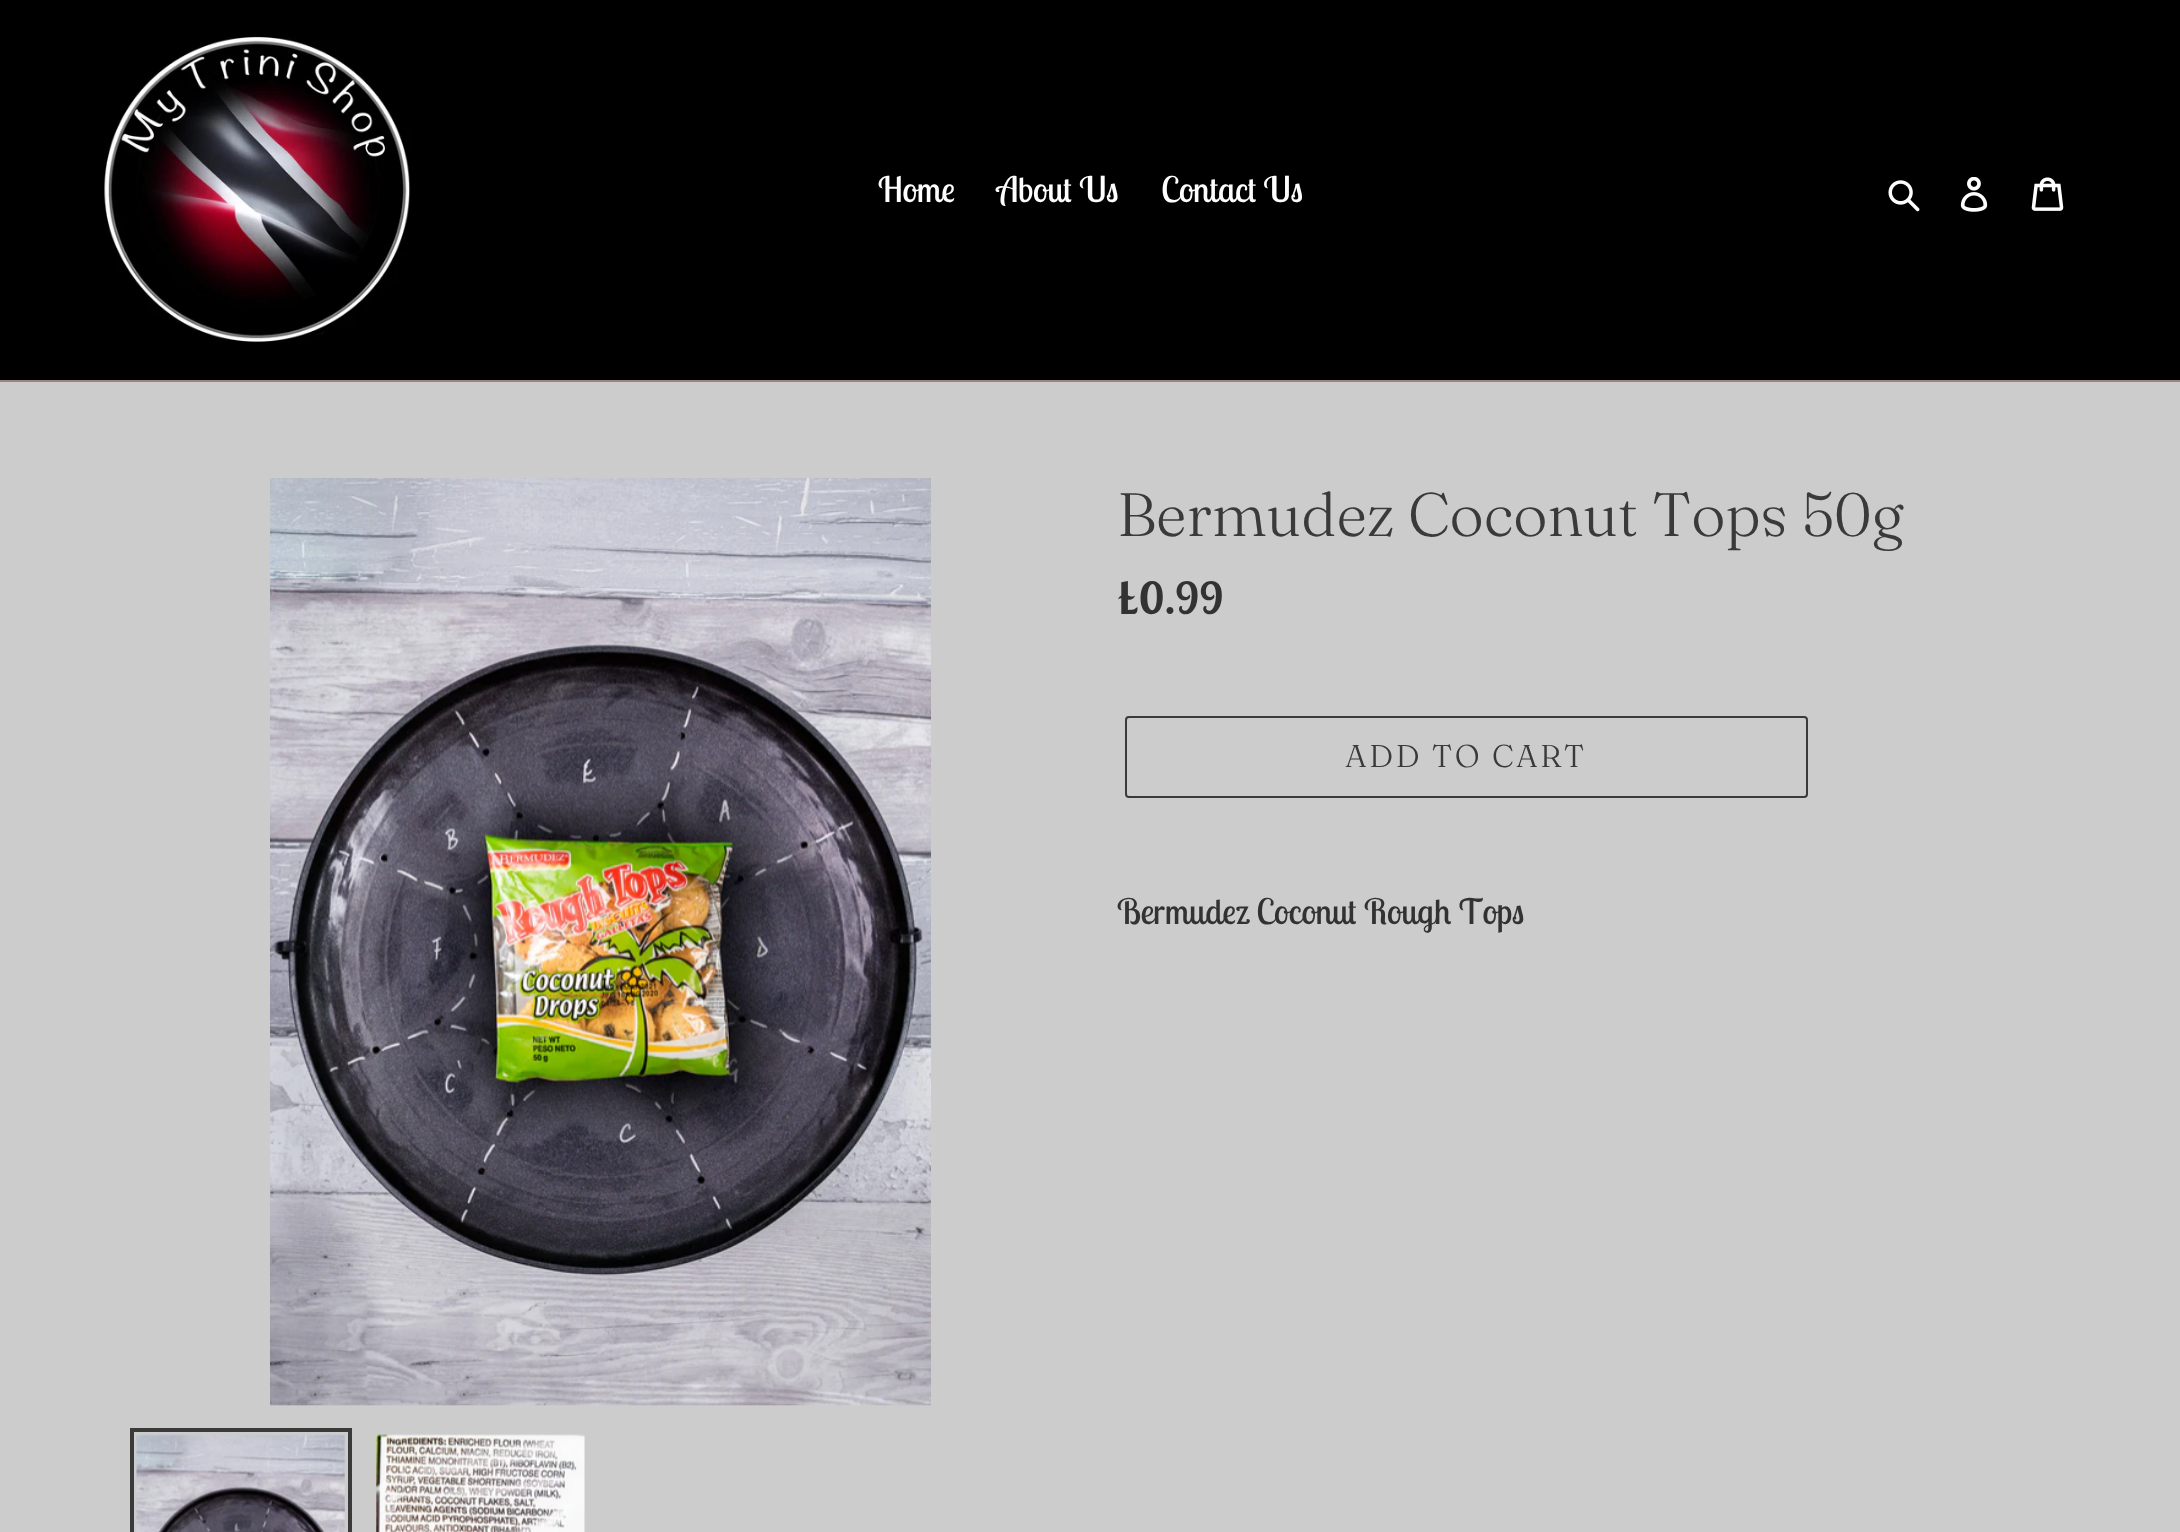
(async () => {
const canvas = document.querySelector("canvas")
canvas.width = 2180
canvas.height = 1532
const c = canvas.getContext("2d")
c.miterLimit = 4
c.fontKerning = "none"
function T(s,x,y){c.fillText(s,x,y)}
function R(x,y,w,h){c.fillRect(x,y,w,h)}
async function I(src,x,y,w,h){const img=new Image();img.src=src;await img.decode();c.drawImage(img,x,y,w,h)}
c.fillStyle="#ccc"
R(0,0,2180,1532)
c.fillStyle="#000"
R(0,0,2180,380)
c.fillStyle="#9a857d"
R(0,380,2180,2)
await I("1.png",104,36,307,306)
c.font="35px Lobster Two"
c.fillStyle="#fff"
T("Home",878,202)
T("About Us",997,202)
T("Contact Us",1161,202)
await I("2.png",1888,180,32,32)
await I("3.png",1960,177,28,35)
await I("4.png",2031,177,33,34)
await I("5.png",270,478,661,928)
c.strokeStyle="#3a3a3a"
c.lineWidth=4
c.strokeRect(132,1430,218,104)
await I("6.png",136,1434,209,98)
await I("7.png",376,1434,209,98)
c.font="300 61.25px Fraunces"
c.fillStyle="#3a3a3a"
T("Bermudez Coconut Tops 50g",1117,536)
c.font="bold 44px Lobster Two"
c.fillStyle="#333232"
T("£0.99",1117,614)
c.beginPath()
c.roundRect(1126,717,681,80,3)
c.lineWidth=2
c.stroke()
c.letterSpacing="2.5px"
c.font="300 31.5px 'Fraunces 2'"
c.fillStyle="#3a3a3a"
T("ADD TO CART",1345,767)
c.letterSpacing="0px"
c.font="35px Lobster Two"
c.fillStyle="#333232"
T("Bermudez Coconut Rough Tops",1117,924)
})()
